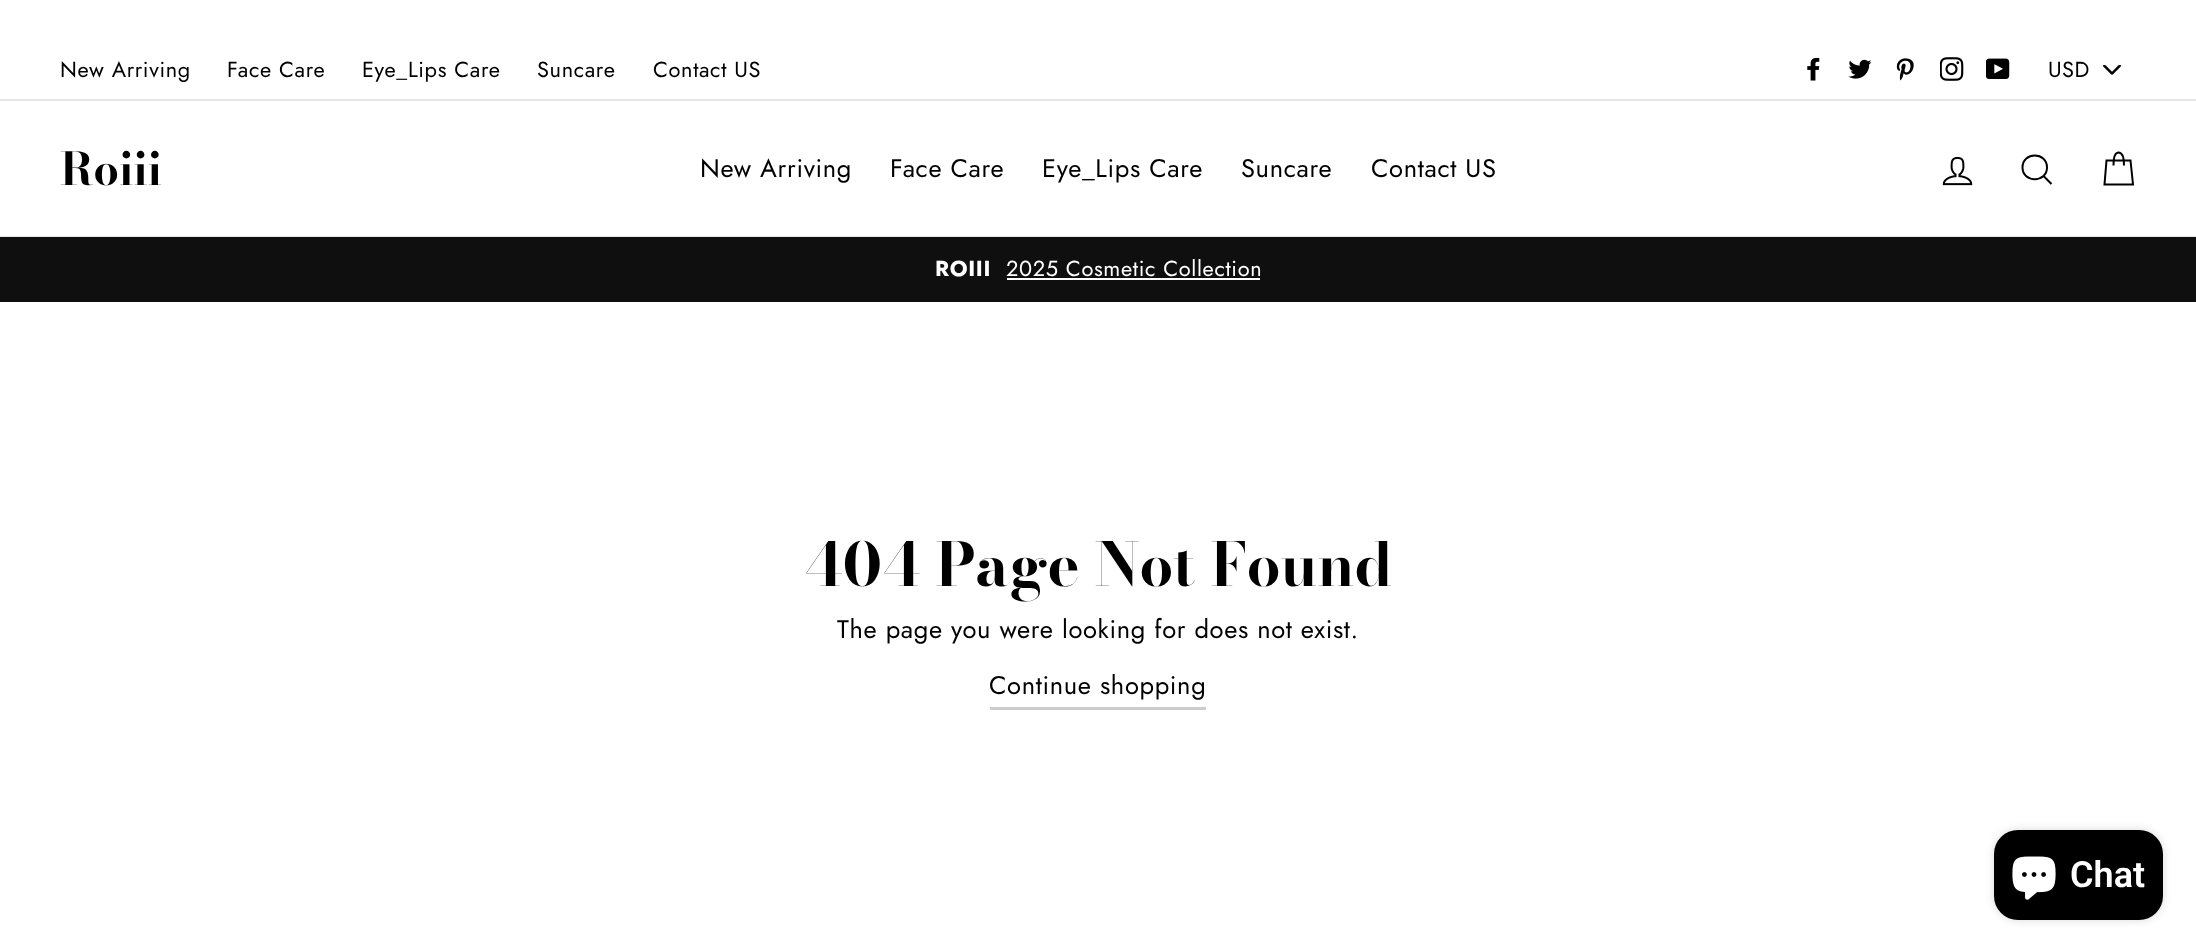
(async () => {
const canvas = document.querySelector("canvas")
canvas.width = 2196
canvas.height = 950
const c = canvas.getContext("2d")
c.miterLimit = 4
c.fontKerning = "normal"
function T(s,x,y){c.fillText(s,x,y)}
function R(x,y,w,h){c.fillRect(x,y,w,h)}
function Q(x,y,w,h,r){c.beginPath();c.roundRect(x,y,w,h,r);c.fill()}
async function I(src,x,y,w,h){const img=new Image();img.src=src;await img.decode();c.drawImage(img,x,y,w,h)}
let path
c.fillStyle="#fff"
R(0,0,2196,950)
c.letterSpacing="0.65px"
c.font="21.75px Jost"
c.fillStyle="#000"
T("New Arriving",60,77)
T("Face Care",227,77)
T("Eye_Lips Care",362,77)
T("Suncare",537,77)
T("Contact US",653,77)
await I("1.png",1807,57,13,24)
await I("2.png",1848,59,24,20)
await I("3.png",1896,58,18,23)
await I("4.png",1940,57,24,24)
await I("5.png",1986,58,24,21)
await I("6.png",2103,65,18,10)
c.letterSpacing="0.5px"
T("USD",2048,77)
c.fillStyle="#e6e6e6"
R(0,99,2196,2)
c.fillStyle="#e8e8e1"
R(0,236,2196,1)
c.letterSpacing="0px"
c.font="bold 45px 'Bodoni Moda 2'"
c.fillStyle="#000"
T("Roiii",60,185)
c.letterSpacing="0.65px"
c.font="25.5px Jost"
T("New Arriving",700,177)
T("Face Care",890,177)
T("Eye_Lips Care",1042,177)
T("Suncare",1241,177)
T("Contact US",1371,177)
await I("7.png",1942,156,31,30)
path = new Path2D("M2047 167.5c0 15.5-24.5 15.5-24.5 0c0-16 24.5-16 24.5 0zm4.5 16.5l-8-8")
c.strokeStyle="#000"
c.lineWidth=2
c.stroke(path)
path = new Path2D("M2113.5 165.5c0-10.5 2-13 5-13c3 0 5.5 2.5 5.5 13m-17.5-5h24l2.5 24h-28.5z")
c.stroke(path)
c.fillStyle="#0f0f0f"
R(0,237,2196,65)
c.font="bold 21.75px Jost"
c.fillStyle="#fff"
T("ROIII",935,276)
c.font="21.75px Jost"
T("2025 Cosmetic Collection",1006,276)
R(1007,278,253,2)
c.letterSpacing="0px"
c.font="bold 60px Bodoni Moda"
c.fillStyle="#000"
T("404 Page Not Found",804,586)
c.letterSpacing="0.65px"
c.font="25.5px Jost"
T("The page you were looking for does not exist.",837,638)
c.fillStyle="#ccc"
R(990,707,216,3)
c.fillStyle="#000"
T("Continue shopping",989,694)
c.fillStyle="#00000026"
c.filter="blur(4px)"
c.beginPath()
c.roundRect(1994,830,169,90,24)
c.fill()
c.filter="none"
c.fillStyle="#000"
Q(1994,830,169,90,24)
await I("8.png",2012,856,44,44)
c.letterSpacing="0px"
c.font="600 36px Roboto"
c.fillStyle="#fff"
T("Chat",2070,887)
})()
